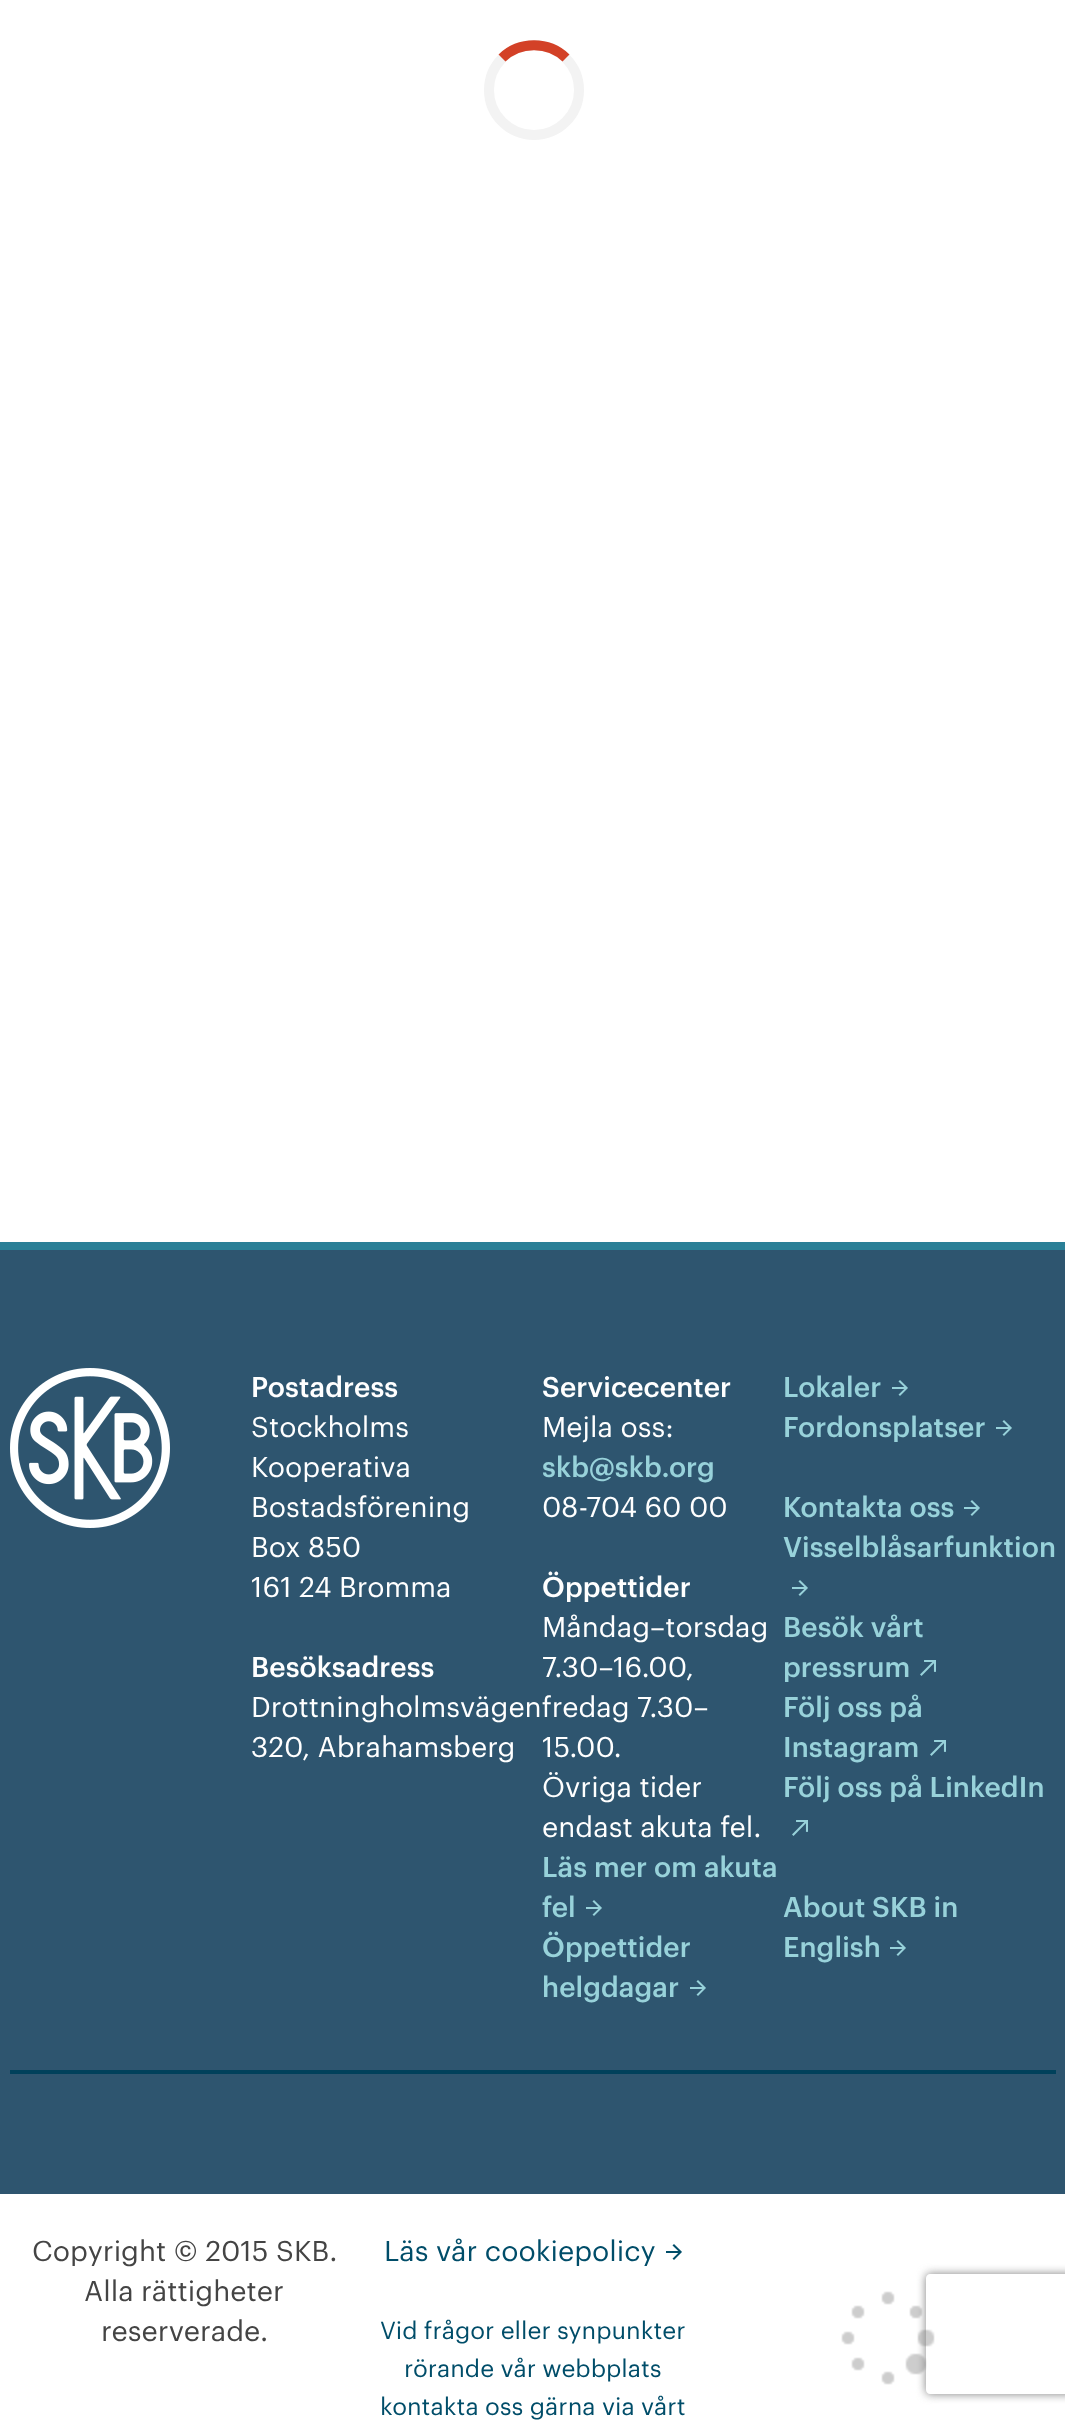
(async () => {
const canvas = document.querySelector("canvas")
canvas.width = 1065
canvas.height = 2422
const c = canvas.getContext("2d")
c.miterLimit = 4
c.fontKerning = "normal"
function T(s,x,y){c.fillText(s,x,y)}
function R(x,y,w,h){c.fillRect(x,y,w,h)}
async function I(src,x,y,w,h){const img=new Image();img.src=src;await img.decode();c.drawImage(img,x,y,w,h)}
let path
c.fillStyle="#fff"
R(0,0,1065,2422)
c.beginPath()
c.arc(534,90,45,0,7)
c.strokeStyle="#f3f3f3"
c.lineWidth=10
c.stroke()
path = new Path2D("M502 58c17.5-17 46.5-17 64 0")
c.strokeStyle="#d34127"
c.stroke(path)
c.fillStyle="#2e556f"
R(0,1250,1065,944)
c.fillStyle="#2a7f97"
R(0,1242,1065,8)
c.fillStyle="#00415b"
R(10,2070,1046,4)
await I("1.png",10,1368,160,160)
c.font="500 28px Graphik"
c.fillStyle="#fff"
T("Postadress",251,1397)
c.font="28px Graphik"
T("Stockholms",251,1437)
T("Kooperativa",251,1477)
T("Bostadsförening",251,1517)
T("Box 850",251,1557)
T("161 24 Bromma",251,1597)
c.font="500 28px Graphik"
T("Besöksadress",251,1677)
c.font="28px Graphik"
T("Drottningholmsvägenfredag 7.30–",251,1717)
T("320, Abrahamsberg",251,1757)
c.font="500 28px Graphik"
c.fillStyle="#98d2da"
T("Lokaler",783,1397)
await I("2.png",892,1380,16,16)
T("Fordonsplatser",783,1437)
await I("2.png",996,1420,16,16)
T("Kontakta oss",783,1517)
await I("2.png",964,1500,16,16)
T("Visselblåsarfunktion",783,1557)
await I("2.png",792,1580,16,16)
T("Besök vårt",783,1637)
T("pressrum",783,1677)
await I("3.png",920,1660,16,16)
T("Följ oss på",783,1717)
T("Instagram",783,1757)
await I("3.png",930,1740,16,16)
T("Följ oss på LinkedIn",783,1797)
await I("3.png",792,1820,16,16)
T("About SKB in",783,1917)
T("English",783,1957)
await I("2.png",890,1940,16,16)
c.fillStyle="#fff"
T("Servicecenter",542,1397)
c.font="28px Graphik"
T("Mejla oss:",542,1437)
c.font="500 28px Graphik"
c.fillStyle="#98d2da"
T("skb@skb.org",542,1477)
c.font="28px Graphik"
c.fillStyle="#fff"
T("08-704 60 00",542,1517)
c.font="500 28px Graphik"
T("Öppettider",542,1597)
c.font="28px Graphik"
T("Måndag–torsdag",542,1637)
T("7.30–16.00,",542,1677)
T("15.00.",542,1757)
T("Övriga tider",542,1797)
T("endast akuta fel.",542,1837)
c.font="500 28px Graphik"
c.fillStyle="#98d2da"
T("Läs mer om akuta",542,1877)
T("fel",542,1917)
await I("2.png",586,1900,16,16)
T("Öppettider",542,1957)
T("helgdagar",542,1997)
await I("2.png",690,1980,16,16)
c.font="28px Graphik"
c.fillStyle="#444"
T("Copyright © 2015 SKB.",32,2261)
T("Alla rättigheter",84,2301)
T("reserverade.",101,2341)
c.fillStyle="#004d69"
T("Läs vår cookiepolicy",384,2261)
await I("4.png",666,2244,16,16)
c.font="24px Graphik"
T("Vid frågor eller synpunkter",380,2339)
T("rörande vår webbplats",404,2377)
T("kontakta oss gärna via vårt",380,2415)
await I("5.png",841,2291,94,94)
c.save()
path = new Path2D("M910 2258h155v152h-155zm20 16h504c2 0 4 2 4 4v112c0 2-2 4-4 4h-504c-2 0-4-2-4-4v-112c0-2 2-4 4-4z")
c.clip(path,"evenodd")
c.fillStyle="#808080"
c.filter="blur(5px)"
c.beginPath()
c.roundRect(926,2274,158,120,4)
c.fill()
c.filter="none"
c.restore()
})()
